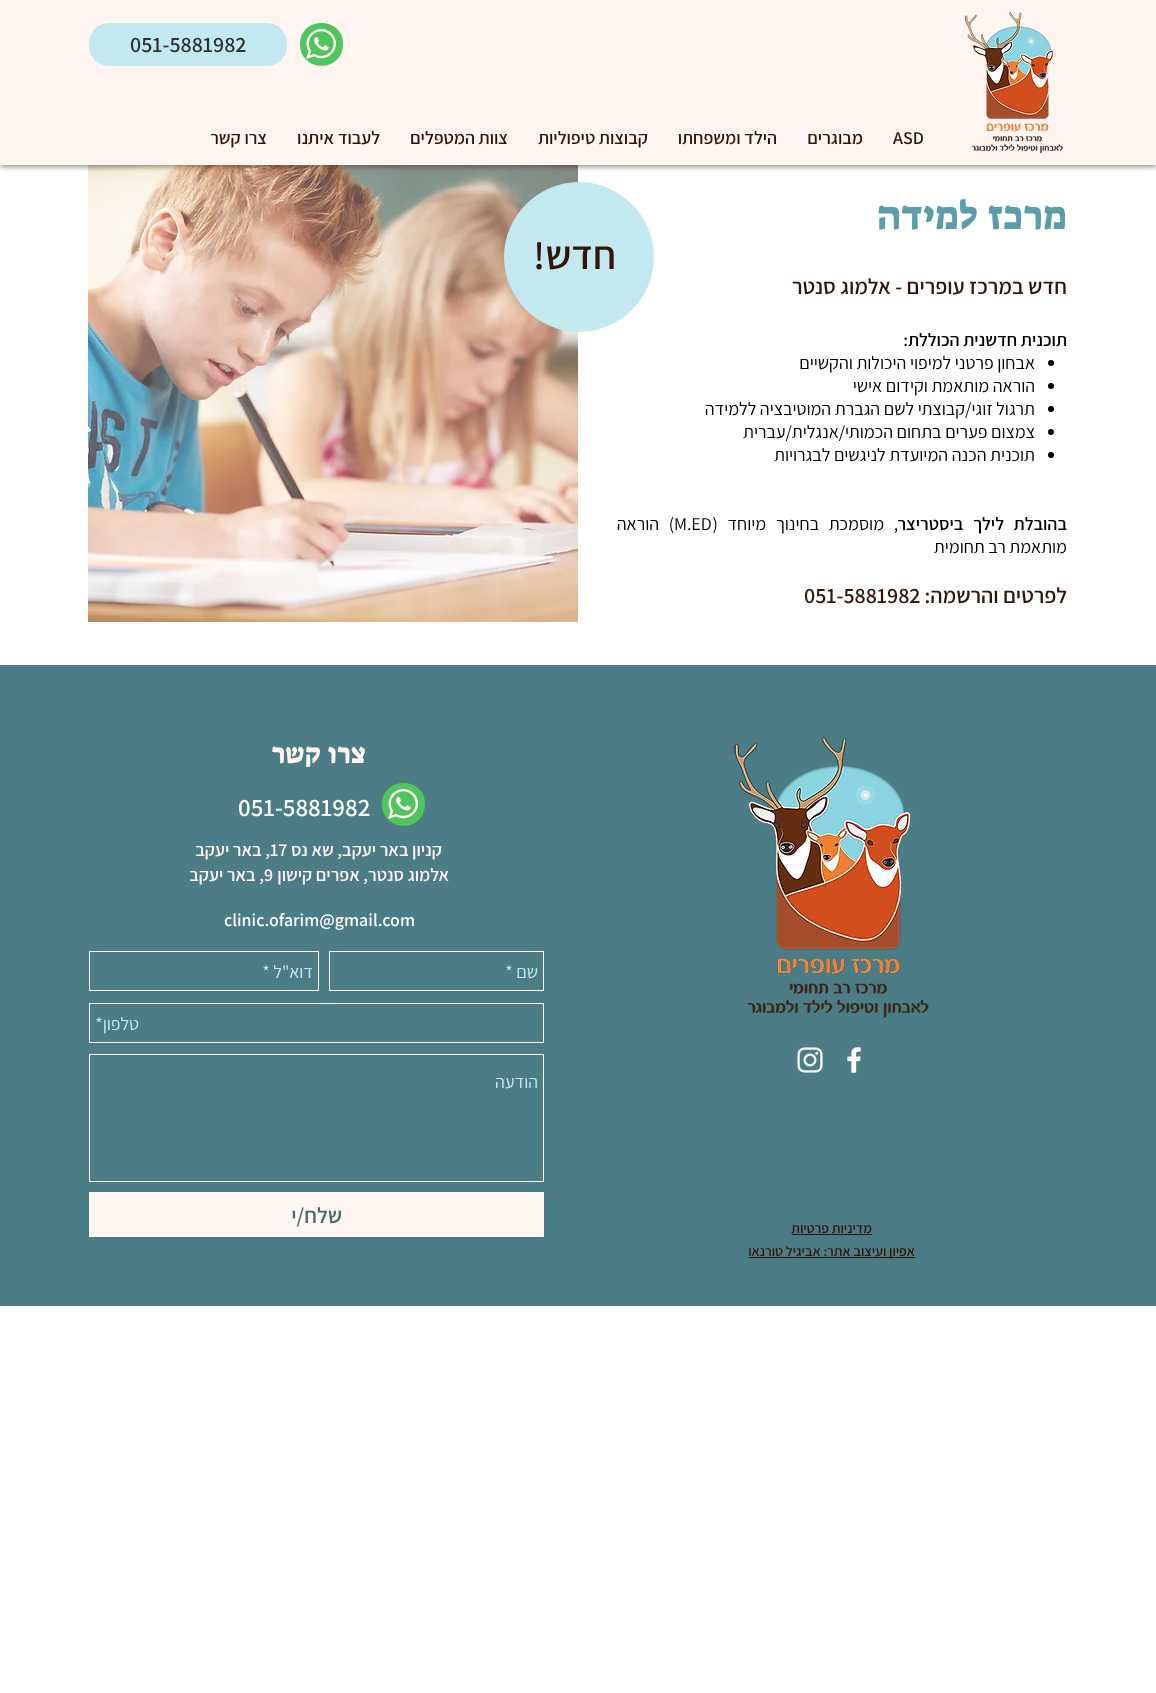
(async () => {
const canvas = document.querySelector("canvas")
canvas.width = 1156
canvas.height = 1693
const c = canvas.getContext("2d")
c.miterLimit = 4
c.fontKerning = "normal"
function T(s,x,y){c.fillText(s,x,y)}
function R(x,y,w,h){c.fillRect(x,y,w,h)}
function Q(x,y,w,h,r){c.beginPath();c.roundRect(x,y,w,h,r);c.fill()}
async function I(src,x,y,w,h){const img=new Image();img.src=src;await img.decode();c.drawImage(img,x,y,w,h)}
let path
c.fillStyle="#fff"
R(0,0,1156,1693)
await I("3.png",88,165,490,457)
c.fillStyle="#32170978"
c.filter="blur(2.5px)"
c.beginPath()
c.rect(0,2,1156,165)
c.fill()
c.filter="none"
c.fillStyle="#fff5f0"
R(0,0,1156,165)
await I("1.png",965,12,98,142)
c.fillStyle="#50c55e"
path = new Path2D("M343 44c0 29-43 29-43 0c0-28 43-28 43 0z")
c.fill(path)
await I("2.png",306,29,30,30)
c.fillStyle="#c2e9f0"
Q(89,23,198,43,20)
c.font="600 22px Assistant"
c.fillStyle="#323232"
T("051-5881982",130,52)
c.font="600 18px Assistant"
c.fillStyle="#321709"
T("ASD",893,144)
c.direction="rtl"
T("מבוגרים",863,144)
T("הילד ומשפחתו",777,144)
T("קבוצות טיפוליות",648,144)
T("צוות המטפלים",508,144)
T("לעבוד איתנו",380,144)
T("צרו קשר",267,144)
c.font="40px Suez One"
c.fillStyle="#5c9daa"
T("מרכז למידה",1067,229)
c.font="600 22px Assistant"
c.fillStyle="#321709"
T("חדש במרכז עופרים - אלמוג סנטר",1067,294)
c.font="600 18px Assistant"
c.fillStyle="#000"
T("תוכנית חדשנית הכוללת:",1067,346)
c.beginPath()
c.arc(1051,363,3,0,7)
c.fill()
c.font="18px Assistant"
T("אבחון פרטני למיפוי היכולות והקשיים",1035,369)
c.beginPath()
c.arc(1051,386,3,0,7)
c.fill()
T("הוראה מותאמת וקידום אישי",1035,392)
c.beginPath()
c.arc(1051,409,3,0,7)
c.fill()
T("תרגול זוגי/קבוצתי לשם הגברת המוטיבציה ללמידה",1035,415)
c.beginPath()
c.arc(1051,432,3,0,7)
c.fill()
T("צמצום פערים בתחום הכמותי/אנגלית/עברית",1035,438)
c.beginPath()
c.arc(1051,455,3,0,7)
c.fill()
T("תוכנית הכנה המיועדת לניגשים לבגרויות",1035,461)
c.wordSpacing="6px"
c.font="600 18px Assistant"
T("בהובלת לילך ביסטריצר",1067,530)
c.font="18px Assistant"
T(", מוסמכת בחינוך מיוחד (",898,530)
c.wordSpacing="0px"
c.direction="ltr"
T("M.ED",674,530)
c.wordSpacing="6px"
c.direction="rtl"
T(") הוראה",674,530)
c.wordSpacing="0px"
T("מותאמת רב תחומית",1067,553)
c.font="600 22px Assistant"
c.fillStyle="#321709"
T("לפרטים והרשמה:",1067,603)
c.direction="ltr"
T("051-5881982",804,603)
c.fillStyle="#c2e9f0"
path = new Path2D("M654 257c0 41-34 75-75 75c-41 0-75-34-75-75c0-41 34-75 75-75c41 0 75 34 75 75z")
c.fill(path)
c.direction="rtl"
c.font="600 40px Assistant"
c.fillStyle="#321709"
T("חדש!",616,269)
c.fillStyle="#4c7c85"
R(0,665,1156,641)
c.font="28px Suez One"
c.fillStyle="#fff5f0"
T("צרו קשר",366,763)
c.fillStyle="#50c55e"
path = new Path2D("M425 804c0 29-43 29-43 0c0-28 43-28 43 0z")
c.fill(path)
await I("2.png",388,789,30,30)
c.direction="ltr"
c.font="600 25px Assistant"
c.fillStyle="#fff"
T("051-5881982",238,816)
c.direction="rtl"
c.font="600 18px Assistant"
c.fillStyle="#fff5f0"
T("קניון באר יעקב, שא נס",442,856)
c.direction="ltr"
T("17",270,856)
c.direction="rtl"
T(", באר יעקב",270,856)
T("אלמוג סנטר, אפרים קישון",449,881)
c.direction="ltr"
T("9",264,881)
c.direction="rtl"
T(", באר יעקב",264,881)
c.direction="ltr"
c.fillStyle="#fff"
T("clinic.ofarim@gmail.com",224,926)
c.strokeStyle="#fff5f0"
c.strokeRect(329.5,951.5,214,39)
c.direction="rtl"
c.font="18px Assistant"
c.fillStyle="#c2e9f0"
T("שם *",538,978)
c.strokeRect(89.5,951.5,229,39)
T("דוא\"ל *",313,978)
c.strokeRect(89.5,1003.5,454,39)
T("טלפון*",139,1030)
c.strokeRect(89.5,1054.5,454,127)
T("הודעה",538,1088)
c.fillStyle="#fff5f0"
R(89,1192,455,45)
c.font="600 22px Assistant"
c.fillStyle="#466a71"
T("שלח/י",342,1223)
await I("4.png",734,736,195,283)
await I("5.png",847,1047,14,26)
await I("6.png",797,1047,26,26)
c.font="600 14px Assistant"
c.fillStyle="#321709"
T("מדיניות פרטיות",872,1233)
R(792,1234,80,1)
R(749,1257,166,1)
T("אפיון ועיצוב אתר: אביגיל טורנאו",915,1256)
})()
